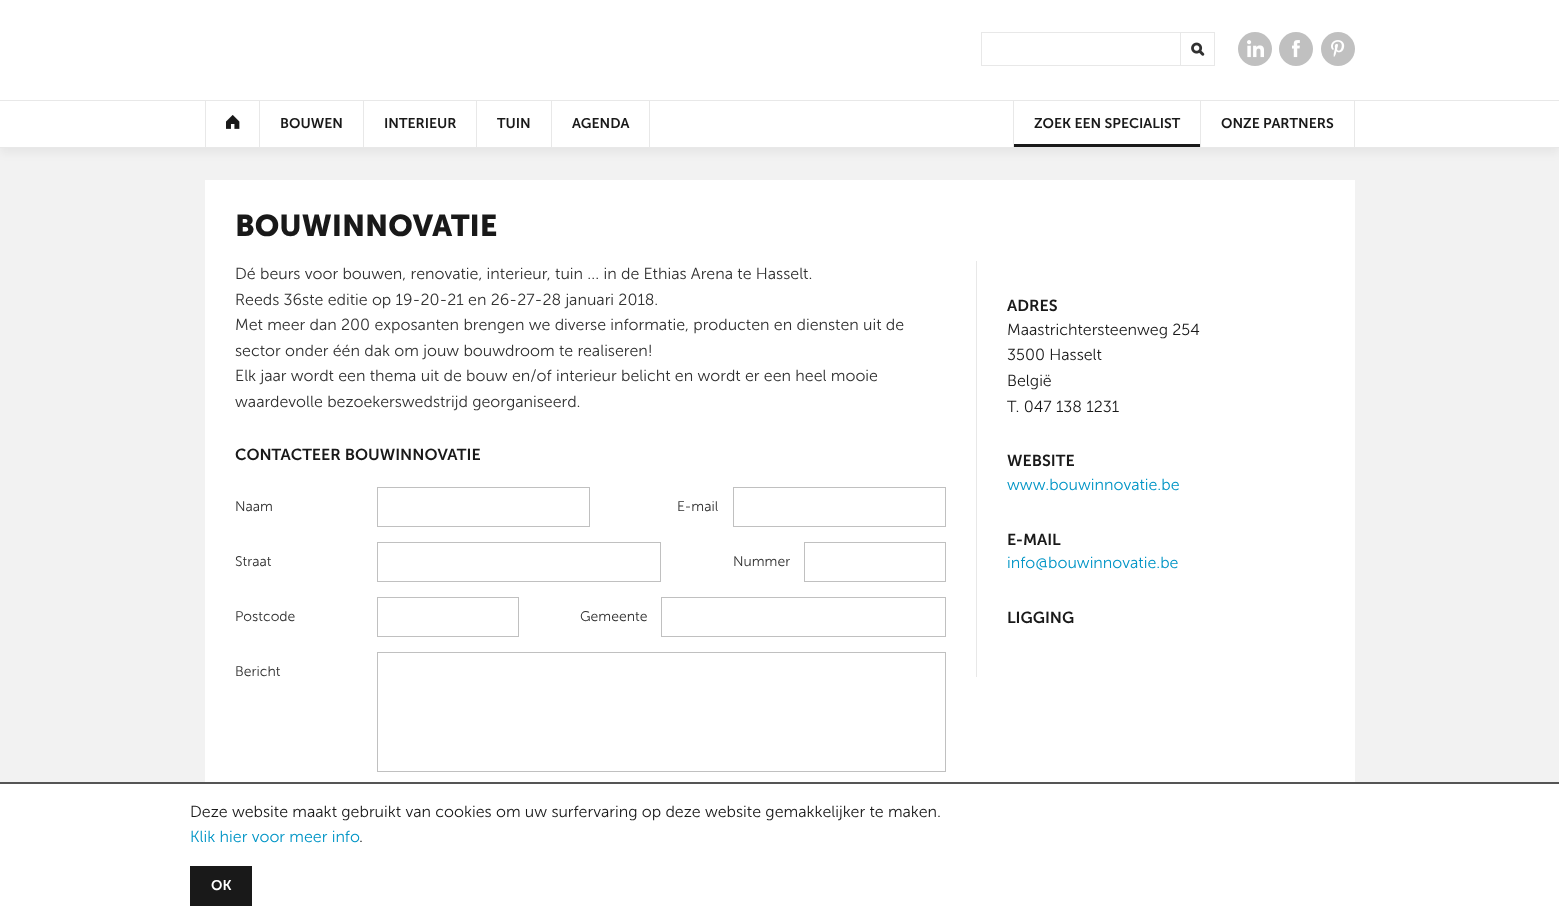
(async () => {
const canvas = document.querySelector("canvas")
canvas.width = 1559
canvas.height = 921
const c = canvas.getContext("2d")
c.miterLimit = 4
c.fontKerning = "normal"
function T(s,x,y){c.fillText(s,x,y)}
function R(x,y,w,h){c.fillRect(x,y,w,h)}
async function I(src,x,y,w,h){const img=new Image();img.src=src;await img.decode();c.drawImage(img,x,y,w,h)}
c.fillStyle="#f2f2f2"
R(0,0,1559,921)
c.fillStyle="#0000000d"
c.filter="blur(5px)"
c.beginPath()
c.rect(0,-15,1559,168)
c.fill()
c.filter="none"
c.fillStyle="#fff"
R(0,0,1559,147)
c.strokeStyle="#e8e8e8"
c.strokeRect(981.5,32.5,199,33)
c.fillStyle="#e8e8e8"
R(1181,32,34,1)
R(1214,32,1,34)
R(1181,65,34,1)
await I("1.png",1191,42,14,14)
c.fillStyle="#c0c0c0"
c.beginPath()
c.arc(1255,49,17,0,7)
c.fill()
await I("2.png",1247,40,17,18)
c.beginPath()
c.arc(1296,49,17,0,7)
c.fill()
await I("3.png",1292,40,8,18)
c.beginPath()
c.arc(1338,49,17,0,7)
c.fill()
await I("4.png",1331,40,14,17)
c.fillStyle="#e8e8e8"
R(0,100,1559,1)
R(0,147,1559,1)
R(205,101,1,46)
R(259,101,1,46)
await I("5.png",226,115,14,14)
R(363,101,1,46)
c.font="600 14px 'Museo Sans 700'"
c.fillStyle="#191919"
T("BOUWEN",280,128)
c.fillStyle="#e8e8e8"
R(476,101,1,46)
c.fillStyle="#191919"
T("INTERIEUR",384,128)
c.fillStyle="#e8e8e8"
R(551,101,1,46)
c.fillStyle="#191919"
T("TUIN",497,128)
c.fillStyle="#e8e8e8"
R(649,101,1,46)
c.fillStyle="#191919"
T("AGENDA",572,128)
c.fillStyle="#e8e8e8"
R(1013,101,1,46)
R(1200,101,1,46)
c.fillStyle="#191919"
R(1014,144,186,3)
T("ZOEK EEN SPECIALIST",1034,128)
c.fillStyle="#e8e8e8"
R(1354,101,1,46)
c.fillStyle="#191919"
T("ONZE PARTNERS",1221,128)
c.fillStyle="#fff"
R(205,180,1150,602)
c.font="bold 30px 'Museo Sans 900'"
c.fillStyle="#191919"
T("BOUWINNOVATIE",235,236)
c.font="300 16px 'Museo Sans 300'"
c.fillStyle="#313131"
T("Dé beurs voor bouwen, renovatie, interieur, tuin ... in de Ethias Arena te Hasselt.",235,279)
T("Reeds 36ste editie op 19-20-21 en 26-27-28 januari 2018.",235,305)
T("Met meer dan 200 exposanten brengen we diverse informatie, producten en diensten uit de",235,330)
T("sector onder één dak om jouw bouwdroom te realiseren!",235,356)
T("Elk jaar wordt een thema uit de bouw en/of interieur belicht en wordt er een heel mooie",235,381)
T("waardevolle bezoekerswedstrijd georganiseerd.",235,407)
c.font="600 16px 'Museo Sans 700'"
c.fillStyle="#191919"
T("CONTACTEER BOUWINNOVATIE",235,460)
c.font="300 14px 'Museo Sans 300'"
c.fillStyle="#313131"
T("Naam",235,511)
c.strokeStyle="#c0c0c0"
c.strokeRect(377.5,487.5,212,39)
T("E-mail",677,511)
c.strokeRect(733.5,487.5,212,39)
T("Straat",235,566)
c.strokeRect(377.5,542.5,283,39)
T("Nummer",733,566)
c.strokeRect(804.5,542.5,141,39)
T("Postcode",235,621)
c.strokeRect(377.5,597.5,141,39)
T("Gemeente",580,621)
c.strokeRect(661.5,597.5,284,39)
T("Bericht",235,676)
c.strokeRect(377.5,652.5,568,119)
c.fillStyle="#e8e8e8"
R(976,261,1,416)
c.font="600 16px 'Museo Sans 700'"
c.fillStyle="#191919"
T("ADRES",1007,311)
c.font="300 16px 'Museo Sans 300'"
T("Maastrichtersteenweg 254",1007,335)
T("3500 Hasselt",1007,360)
T("België",1007,386)
T("T. 047 138 1231",1007,412)
c.font="600 16px 'Museo Sans 700'"
T("WEBSITE",1007,466)
c.font="300 16px 'Museo Sans 300'"
c.fillStyle="#0195c6"
T("www.bouwinnovatie.be",1007,490)
c.font="600 16px 'Museo Sans 700'"
c.fillStyle="#191919"
T("E-MAIL",1007,545)
c.font="300 16px 'Museo Sans 300'"
c.fillStyle="#0195c6"
T("info@bouwinnovatie.be",1007,568)
c.font="600 16px 'Museo Sans 700'"
c.fillStyle="#191919"
T("LIGGING",1007,623)
c.fillStyle="#fff"
R(0,784,1559,137)
c.fillStyle="#555"
R(0,782,1559,2)
c.font="300 16px 'Museo Sans 300'"
c.fillStyle="#191919"
T("Deze website maakt gebruikt van cookies om uw surfervaring op deze website gemakkelijker te maken.",190,817)
c.fillStyle="#0195c6"
T("Klik hier voor meer info",190,842)
c.fillStyle="#191919"
T(".",359,842)
R(190,866,62,40)
c.font="600 14px 'Museo Sans 700'"
c.fillStyle="#fff"
T("OK",211,890)
})()
